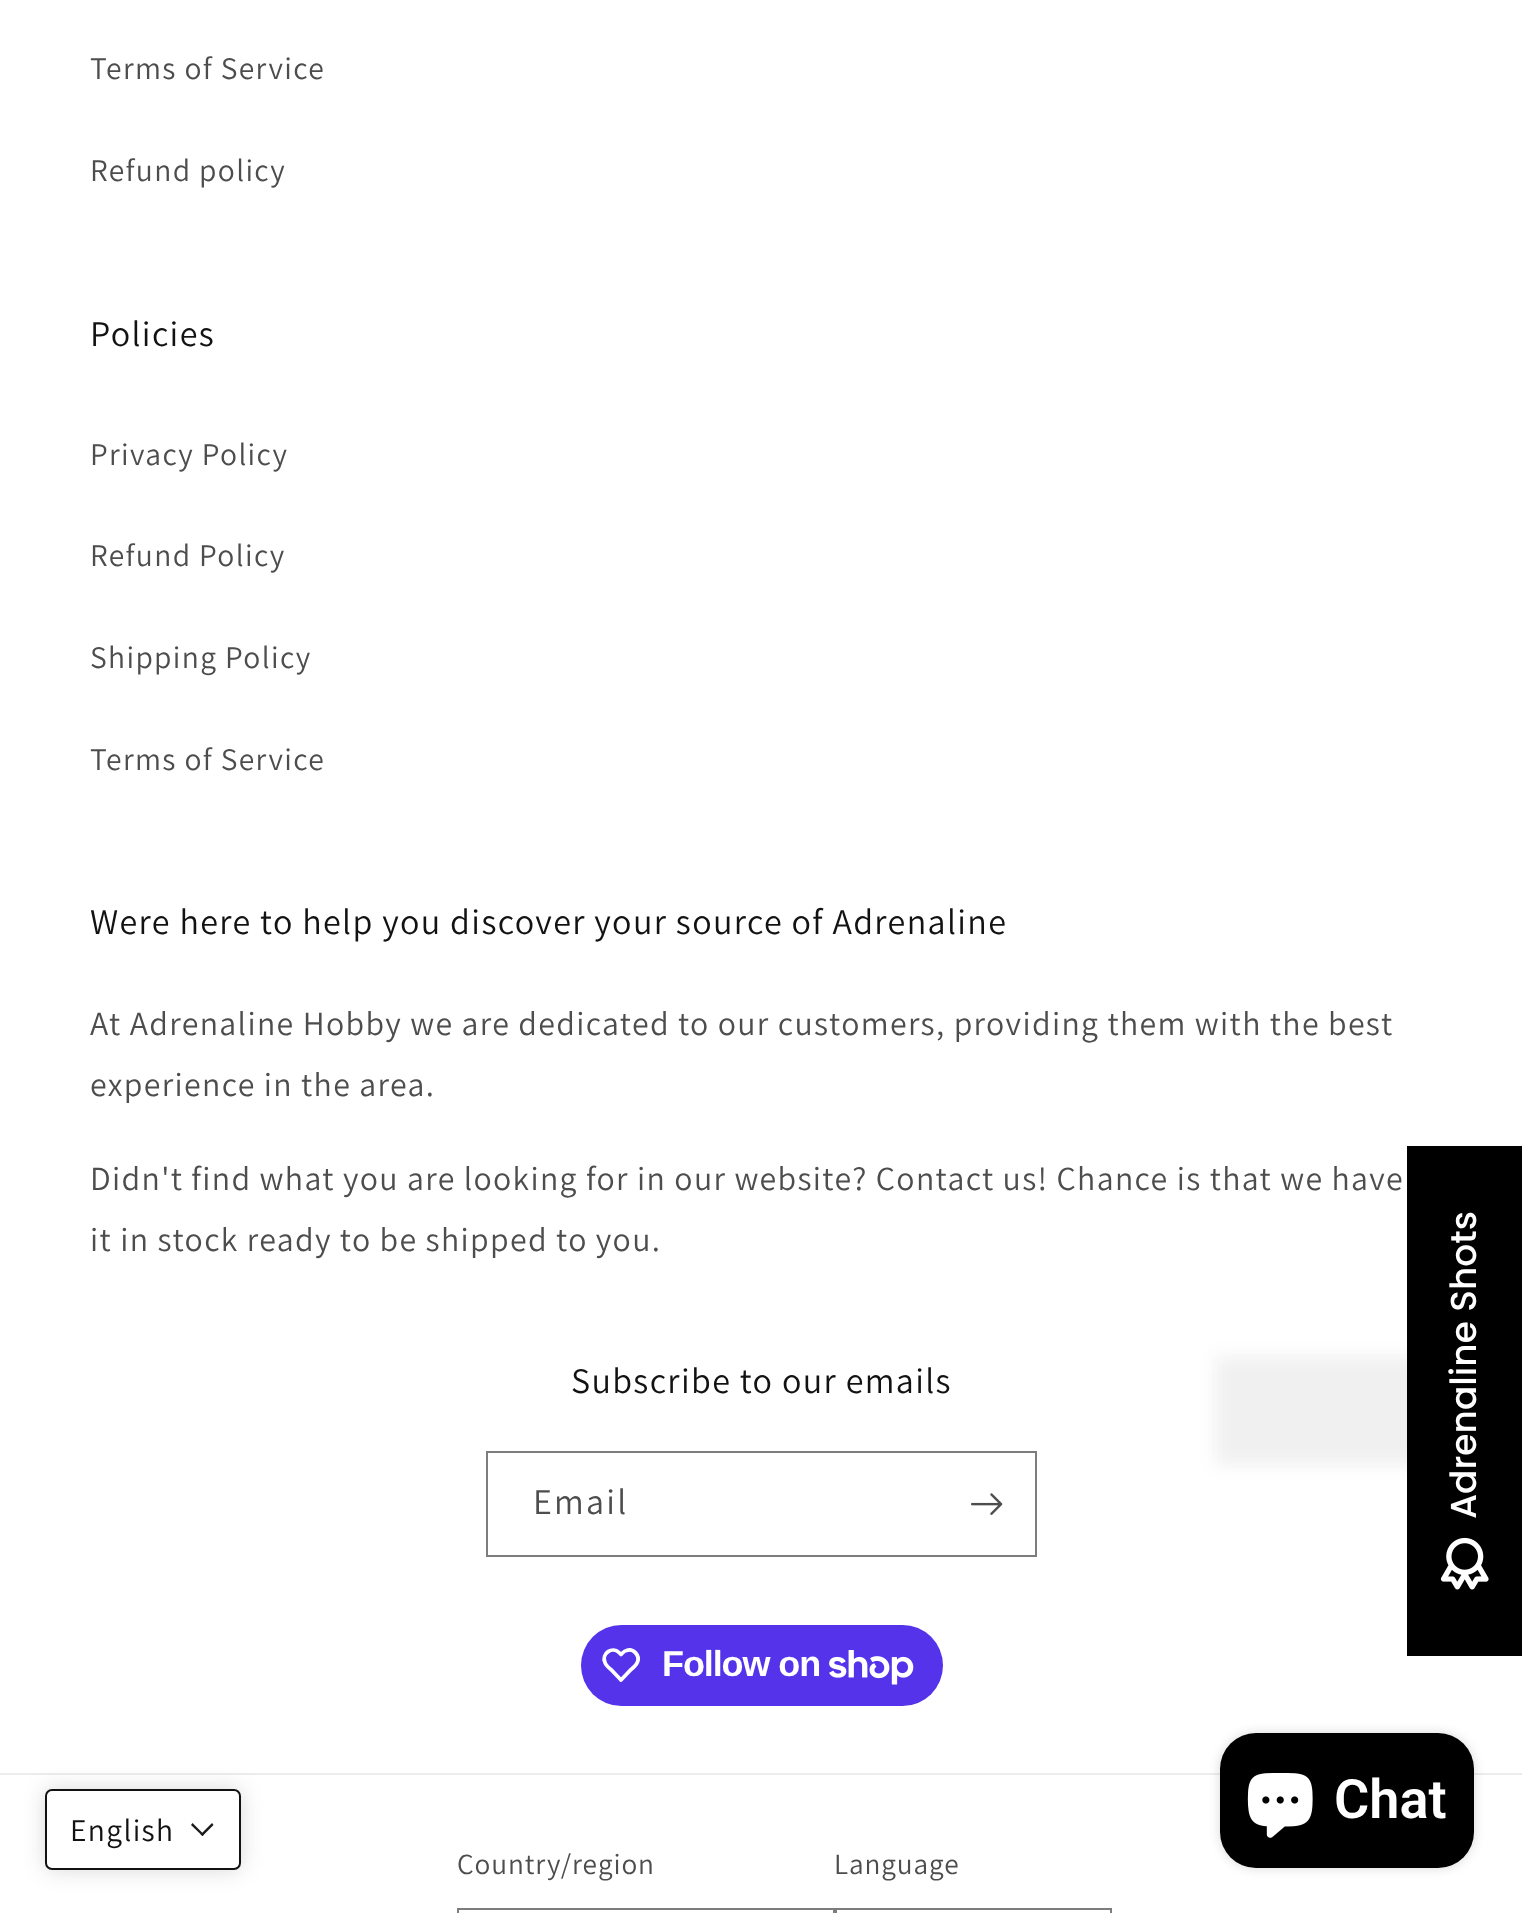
(async () => {
const canvas = document.querySelector("canvas")
canvas.width = 1522
canvas.height = 1913
const c = canvas.getContext("2d")
c.miterLimit = 4
c.fontKerning = "normal"
function T(s,x,y){c.fillText(s,x,y)}
function R(x,y,w,h){c.fillRect(x,y,w,h)}
function Q(x,y,w,h,r){c.beginPath();c.roundRect(x,y,w,h,r);c.fill()}
async function I(src,x,y,w,h){const img=new Image();img.src=src;await img.decode();c.drawImage(img,x,y,w,h)}
let path
c.fillStyle="#fff"
R(0,0,1522,1913)
c.letterSpacing="1.35px"
c.font="31.5px Assistant"
c.fillStyle="#4d4d4d"
T("Terms of Service",90,79)
T("Refund policy",90,181)
c.font="36px Assistant"
c.fillStyle="#121212"
T("Policies",90,346)
c.font="31.5px Assistant"
c.fillStyle="#4d4d4d"
T("Privacy Policy",90,465)
T("Refund Policy",90,566)
T("Shipping Policy",90,668)
T("Terms of Service",90,770)
c.font="36px Assistant"
c.fillStyle="#121212"
T("Were here to help you discover your source of Adrenaline",90,934)
c.font="33.75px Assistant"
c.fillStyle="#4d4d4d"
T("At Adrenaline Hobby we are dedicated to our customers, providing them with the best",90,1035)
T("experience in the area.",90,1096)
T("Didn't find what you are looking for in our website? Contact us! Chance is that we have",90,1190)
T("it in stock ready to be shipped to you.",90,1251)
c.font="36px Assistant"
c.fillStyle="#121212"
T("Subscribe to our emails",571,1393)
c.strokeStyle="#7d7d7d"
c.lineWidth=2
c.strokeRect(487,1452,549,104)
c.letterSpacing="2.25px"
c.fillStyle="#4d4d4d"
T("Email",533,1514)
await I("1.png",971,1493,32,22)
c.fillStyle="#5433eb"
Q(581,1625,362,81,40.5)
path = new Path2D("M619 1652.5l2 2c1.5-1.5 3-3.5 5.5-4c7-2.5 13.5 5 11 11.5c-1.5 3.5-4.5 6-7 8l-9.5 10l-9.5-10c-2.5-2-5.5-4.5-6.5-7.5c-4-9 7.5-16.5 14-10z")
c.strokeStyle="#fff"
c.lineWidth=3.8
c.lineJoin="round"
c.stroke(path)
c.letterSpacing="-1.1px"
c.font="bold 36px Liberation Sans"
c.fillStyle="#fff"
T("Follow on",662,1676)
await I("2.png",829,1650,85,35)
c.fillStyle="#ececec"
R(0,1773,1522,2)
c.letterSpacing="0.9px"
c.font="29.25px Assistant"
c.fillStyle="#4d4d4d"
T("Country/region",457,1874)
c.strokeStyle="#7d7d7d"
c.lineWidth=2
c.lineJoin="miter"
c.strokeRect(458,1909,376,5)
T("Language",834,1874)
c.strokeRect(836,1909,275,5)
c.fillStyle="#44444414"
c.filter="blur(9px)"
c.beginPath()
c.rect(1215,1357,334,108)
c.fill()
c.filter="none"
c.fillStyle="#000"
R(1407,1146,115,510)
c.letterSpacing="0px"
c.font="500 36px Poppins"
c.fillStyle="#fff"
c.save()
c.translate(1476,1519)
c.rotate(-90 * Math.PI / 180)
c.fillText("Adrenaline Shots",0,0)
c.restore()
await I("3.png",1440,1537,49,53)
c.fillStyle="#00000026"
c.filter="blur(5.5px)"
c.beginPath()
c.roundRect(1220,1733,254,135,36)
c.fill()
c.filter="none"
c.fillStyle="#000"
Q(1220,1733,254,135,36)
await I("4.png",1247,1773,66,65)
c.font="600 54px Roboto"
c.fillStyle="#fff"
T("Chat",1334,1818)
c.fillStyle="#00000026"
c.filter="blur(11px)"
c.beginPath()
c.roundRect(45,1789,196,81,7)
c.fill()
c.filter="none"
c.fillStyle="#fff"
c.beginPath()
c.roundRect(46,1790,194,79,6)
c.fill()
c.strokeStyle="#121212"
c.stroke()
c.letterSpacing="1.35px"
c.font="31.5px Assistant"
c.fillStyle="#121212"
T("English",70,1841)
c.fillStyle="#1a1a1a"
path = new Path2D("M212 1823l1.5 2l-11 11l-2-1.5z")
c.fill(path)
path = new Path2D("M192.5 1823l11.5 11.5l-1.5 1.5l-11.5-11z")
c.fill(path)
})()
